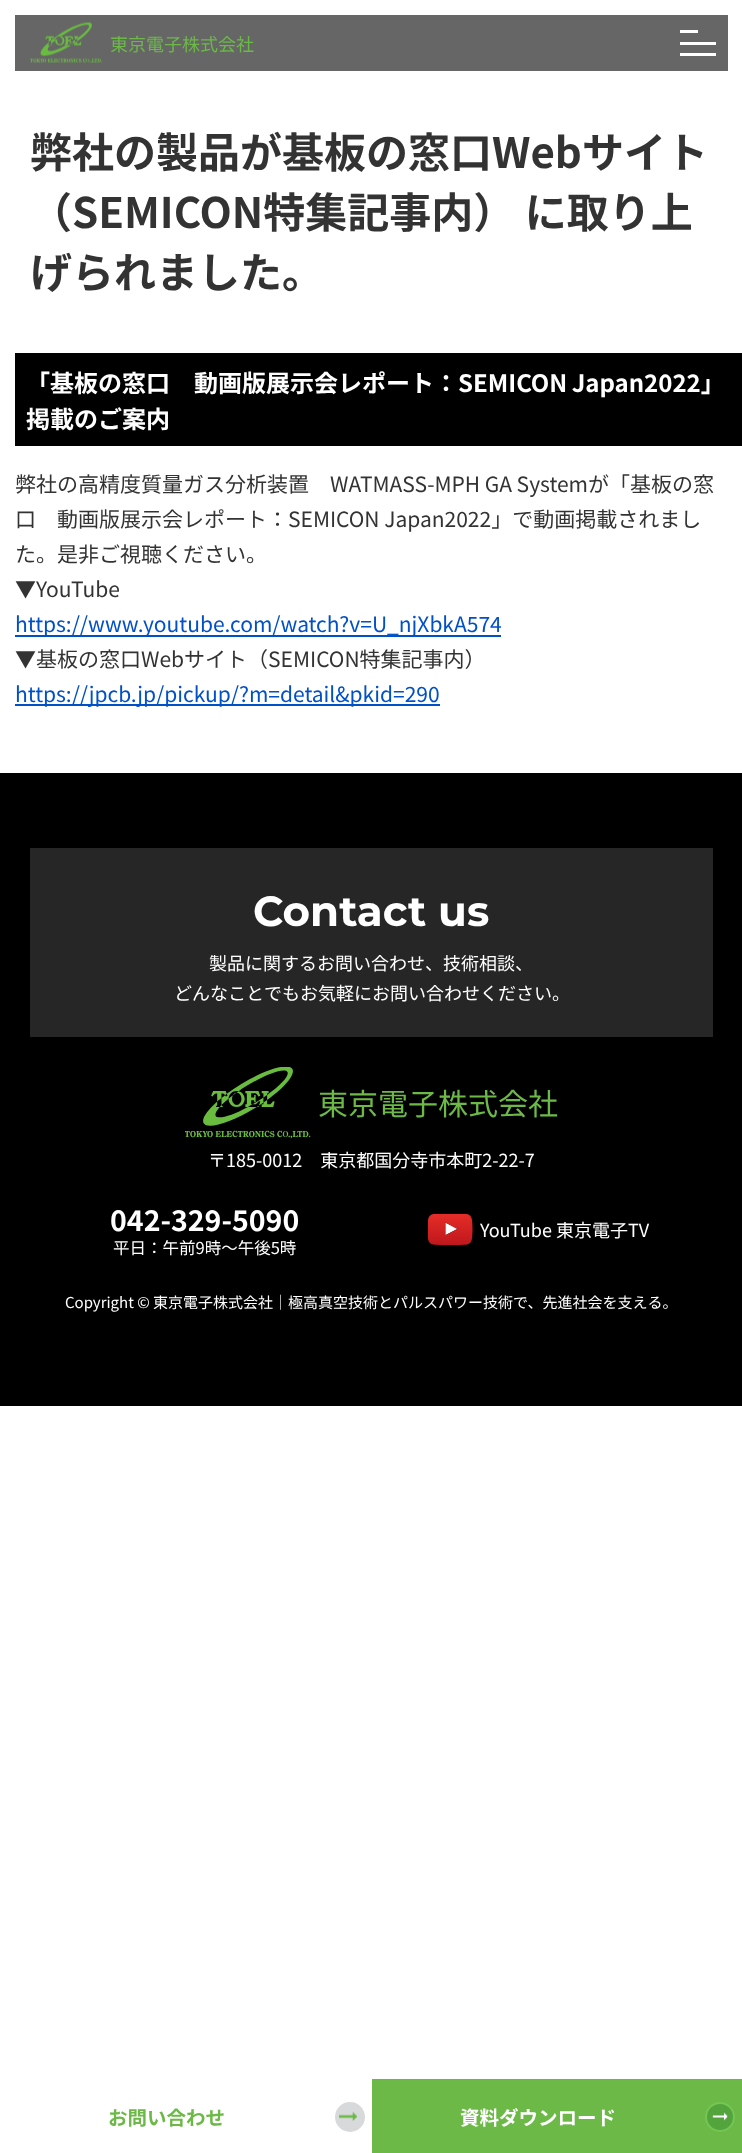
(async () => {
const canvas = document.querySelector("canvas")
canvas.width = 742
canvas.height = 2153
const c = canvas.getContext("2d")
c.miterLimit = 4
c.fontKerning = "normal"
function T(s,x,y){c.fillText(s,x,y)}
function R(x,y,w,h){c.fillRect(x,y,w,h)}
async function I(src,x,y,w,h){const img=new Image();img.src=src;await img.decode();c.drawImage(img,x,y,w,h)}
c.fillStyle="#fff"
R(0,0,742,2153)
c.fillStyle="#666"
R(15,15,713,56)
await I("1.png",30,22,72,41)
c.font="18px Noto Sans JP"
c.fillStyle="#6cb948"
T("東京電子株式会社",110,51)
c.fillStyle="#fff"
R(680,30,18,3)
R(680,42,36,3)
R(680,53,36,3)
c.font="bold 42px Noto Sans JP"
c.fillStyle="#333"
T("弊社の製品が基板の窓口Webサイト",30,168)
T("（SEMICON特集記事内） に取り上",30,228)
T("げられました。",30,288)
c.fillStyle="#000"
R(15,353,727,93)
c.wordSpacing="-1px"
c.font="bold 24px Noto Sans JP"
c.fillStyle="#fff"
T("「基板の窓口　動画版展示会レポート：SEMICON Japan2022」",26,392)
c.wordSpacing="0px"
T("掲載のご案内",26,428)
c.font="21px Noto Sans JP"
c.fillStyle="#333"
T("弊社の高精度質量ガス分析装置　WATMASS-MPH GA Systemが「基板の窓",15,492)
T("口　動画版展示会レポート：SEMICON Japan2022」で動画掲載されまし",15,527)
T("た。是非ご視聴ください。",15,562)
T("▼YouTube",15,597)
c.fillStyle="#0050c8"
R(15,635,486,2)
T("https://www.youtube.com/watch?v=U_njXbkA574",15,632)
c.fillStyle="#333"
T("▼基板の窓口Webサイト（SEMICON特集記事内）",15,667)
c.fillStyle="#0050c8"
R(15,704,425,2)
T("https://jpcb.jp/pickup/?m=detail&pkid=290",15,702)
c.fillStyle="#000"
R(0,773,742,633)
c.fillStyle="#262626"
R(30,848,683,189)
c.font="bold 42px Montserrat"
c.fillStyle="#fff"
T("Contact us",253,926)
c.font="18px Noto Sans JP"
T("製品に関するお問い合わせ、技術相談、",209,970)
T("どんなことでもお気軽にお問い合わせください。",174,1000)
await I("2.png",185,1067,126,72)
c.font="30px Noto Sans JP"
c.fillStyle="#6cb948"
T("東京電子株式会社",318,1115)
c.font="18px Noto Sans JP"
c.fillStyle="#fff"
T("〒185-0012　東京都国分寺市本町2-22-7",208,1167)
c.font="bold 28.5px Noto Sans JP"
T("042-329-5090",110,1231)
c.font="16.5px Noto Sans JP"
T("平日：午前9時～午後5時",113,1254)
await I("3.png",428,1214,45,31)
c.font="18px Noto Sans JP"
T("YouTube 東京電子TV",480,1237)
c.font="15px Noto Sans JP"
T("Copyright © 東京電子株式会社｜極高真空技術とパルスパワー技術で、先進社会を支える。",65,1308)
c.font="bold 19.5px Noto Sans JP"
c.fillStyle="#6cb948"
T("お問い合わせ",108,2125)
c.fillStyle="#d7d9da"
c.beginPath()
c.arc(350,2117,15,0,7)
c.fill()
await I("4.png",339,2111,18,11)
c.fillStyle="#6cb948"
R(372,2079,370,74)
c.fillStyle="#fff"
T("資料ダウンロード",460,2125)
c.fillStyle="#54a43d"
c.beginPath()
c.arc(720,2117,14,0,7)
c.fill()
c.strokeStyle="#74c654"
c.lineWidth=2
c.stroke()
await I("5.png",712,2112,16,9)
})()
